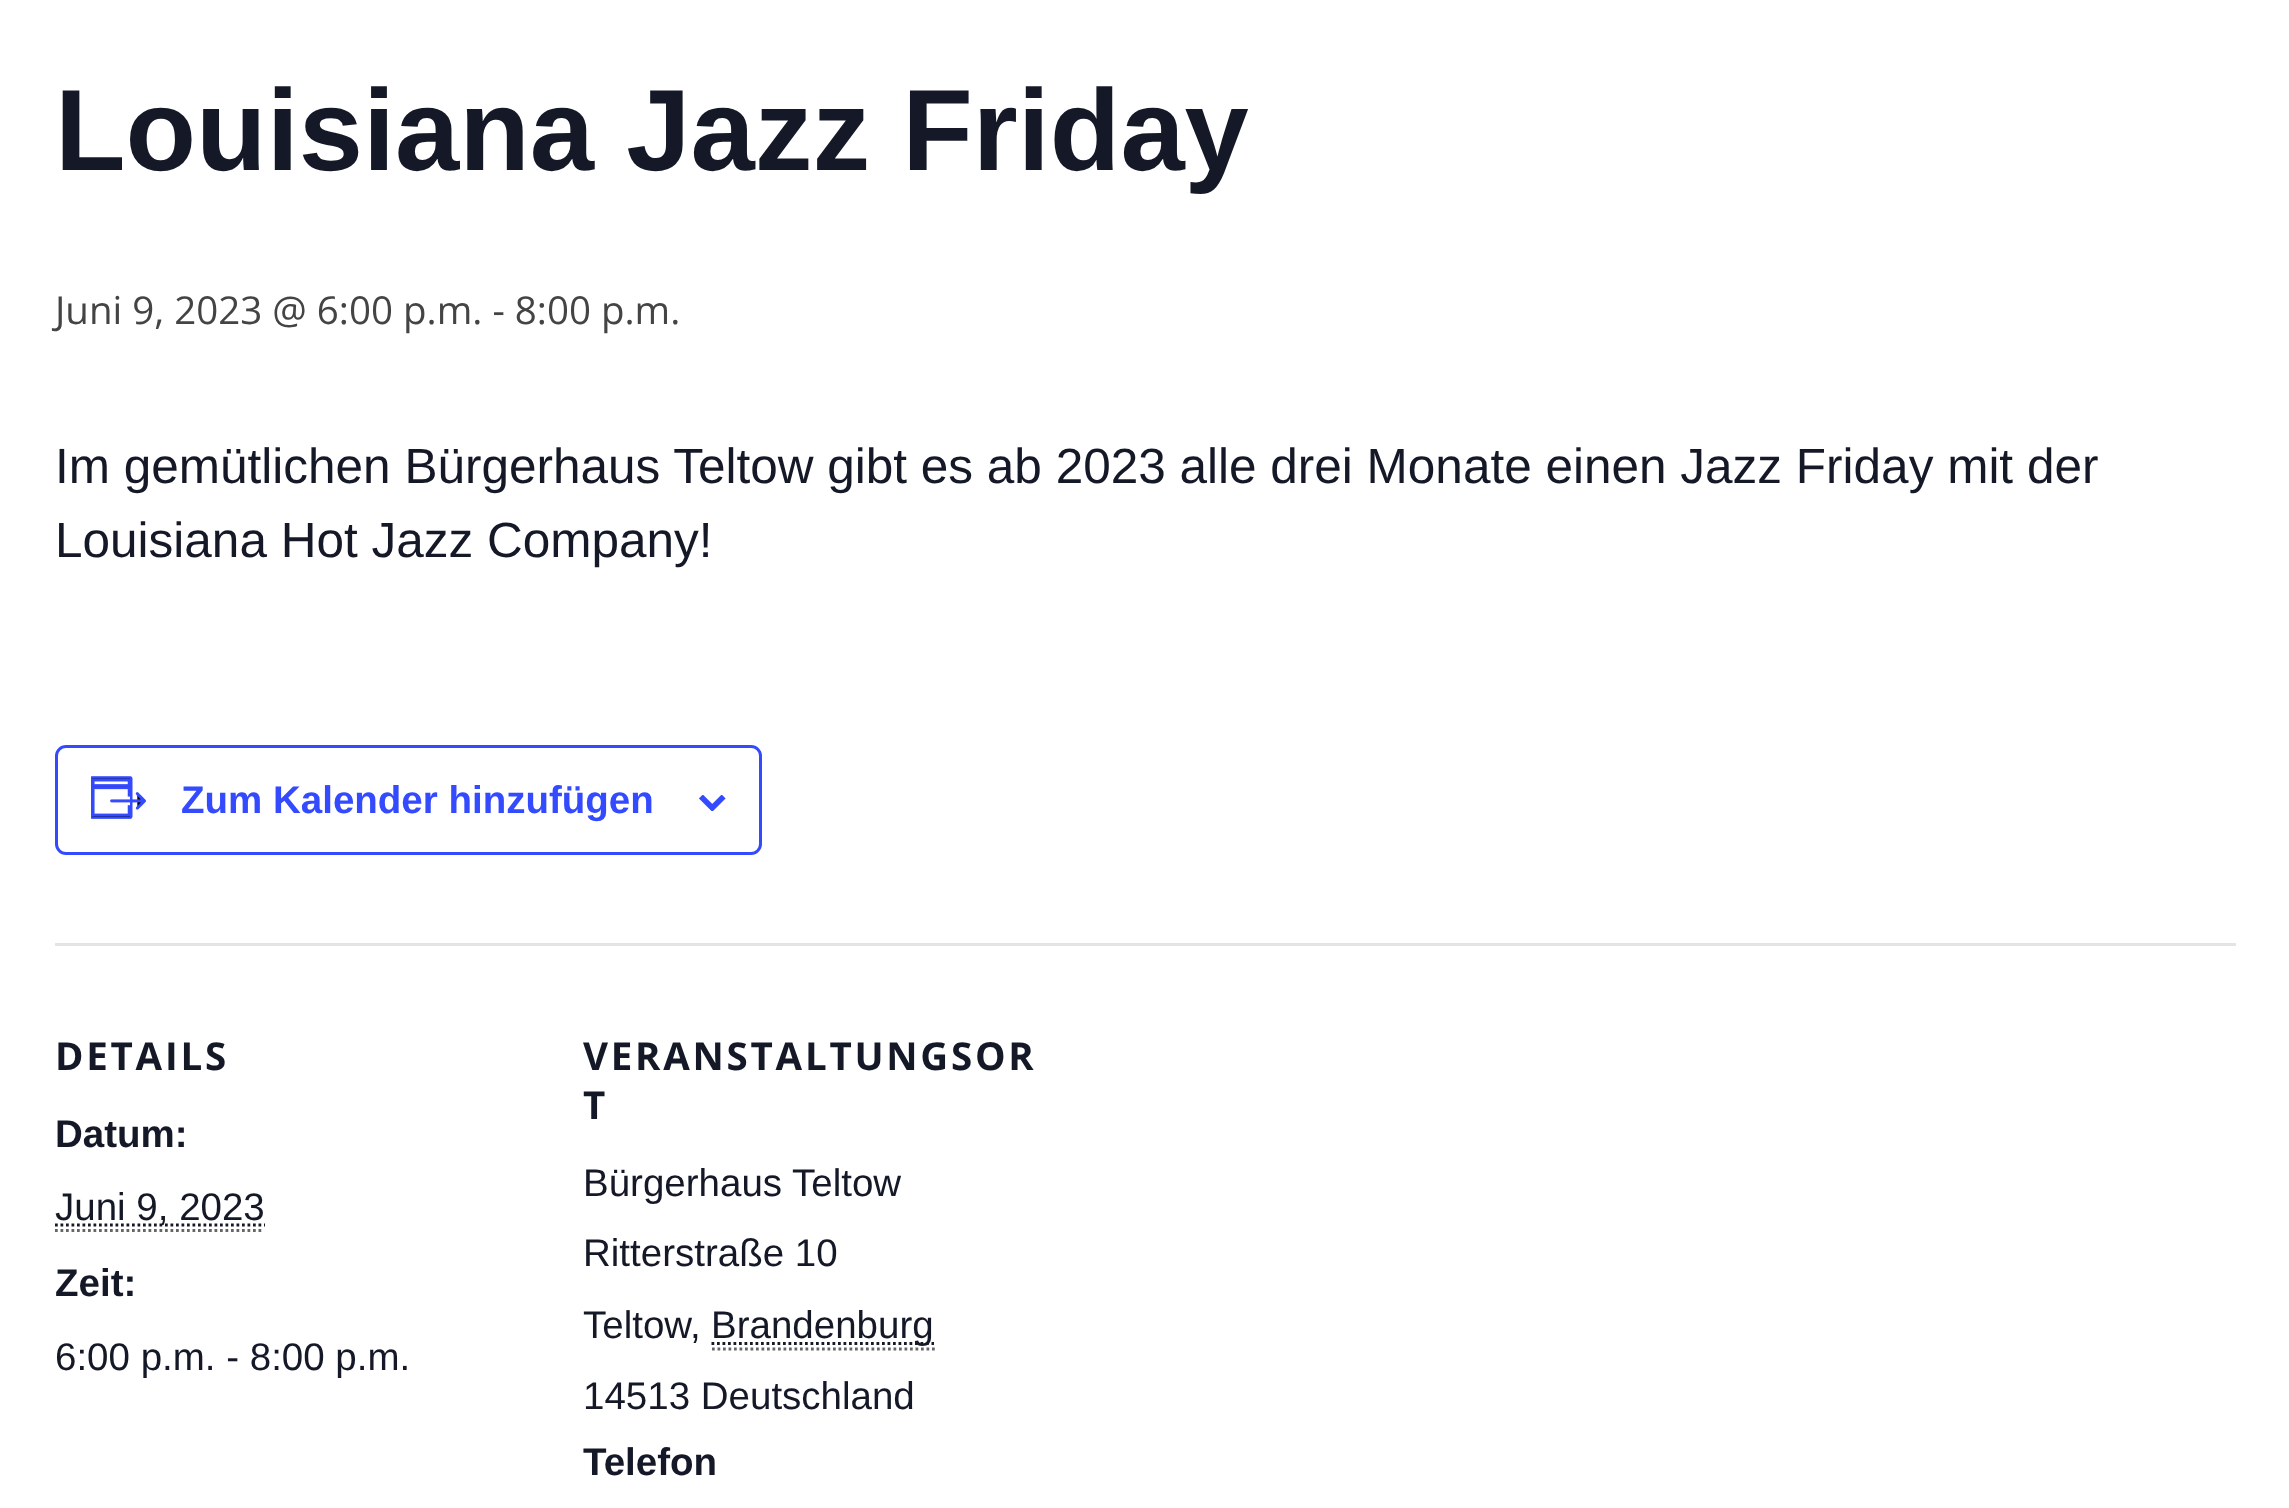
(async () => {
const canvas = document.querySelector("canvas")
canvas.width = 2289
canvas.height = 1508
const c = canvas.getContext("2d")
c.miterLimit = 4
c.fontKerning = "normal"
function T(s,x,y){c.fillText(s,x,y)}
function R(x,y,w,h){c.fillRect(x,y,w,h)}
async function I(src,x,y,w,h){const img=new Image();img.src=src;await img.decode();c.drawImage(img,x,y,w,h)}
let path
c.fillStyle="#fff"
R(0,0,2289,1508)
c.font="bold 115.5px Liberation Sans"
c.fillStyle="#141827"
T("Louisiana Jazz Friday",55,170)
c.font="38.5px Open Sans"
c.fillStyle="#444"
T("Juni 9, 2023 @ 6:00 p.m. - 8:00 p.m.",55,324)
c.font="49.5px Liberation Sans"
c.fillStyle="#141827"
T("Im gemütlichen Bürgerhaus Teltow gibt es ab 2023 alle drei Monate einen Jazz Friday mit der",55,483)
T("Louisiana Hot Jazz Company!",55,557)
c.beginPath()
c.roundRect(56.5,746.5,704,107,9.5)
c.strokeStyle="#334aff"
c.lineWidth=3
c.stroke()
await I("1.png",91,776,55,43)
c.font="bold 38.5px Liberation Sans"
c.fillStyle="#334aff"
T("Zum Kalender hinzufügen",181,813)
await I("2.png",699,795,27,16)
c.fillStyle="#e4e4e4"
R(55,943,2181,3)
c.letterSpacing="2.75px"
c.font="bold 38.5px Open Sans"
c.fillStyle="#141827"
T("DETAILS",55,1070)
c.letterSpacing="0px"
c.font="bold 38.5px Liberation Sans"
T("Datum:",55,1147)
path = new Path2D("M55 1225h210")
c.strokeStyle="#141827"
c.lineWidth=2.8
c.setLineDash([2.75,2.75])
c.stroke(path)
c.font="38.5px Liberation Sans"
T("Juni 9, 2023",55,1220)
path = new Path2D("M55 1230.5h209")
c.strokeStyle="#666"
c.stroke(path)
c.font="bold 38.5px Liberation Sans"
T("Zeit:",55,1296)
c.font="38.5px Liberation Sans"
T("6:00 p.m. - 8:00 p.m.",55,1370)
c.letterSpacing="2.75px"
c.font="bold 38.5px Open Sans"
T("VERANSTALTUNGSOR",583,1070)
T("T",583,1119)
c.letterSpacing="0px"
c.font="38.5px Liberation Sans"
T("Bürgerhaus Teltow",583,1196)
T("Ritterstraße 10",583,1266)
T("Teltow",583,1338)
T(",",690,1338)
path = new Path2D("M712 1349h223")
c.stroke(path)
path = new Path2D("M711.5 1343.5h222.5")
c.strokeStyle="#141827"
c.stroke(path)
T("Brandenburg",711,1338)
T("14513 Deutschland",583,1409)
c.font="bold 38.5px Liberation Sans"
T("Telefon",583,1475)
})()
